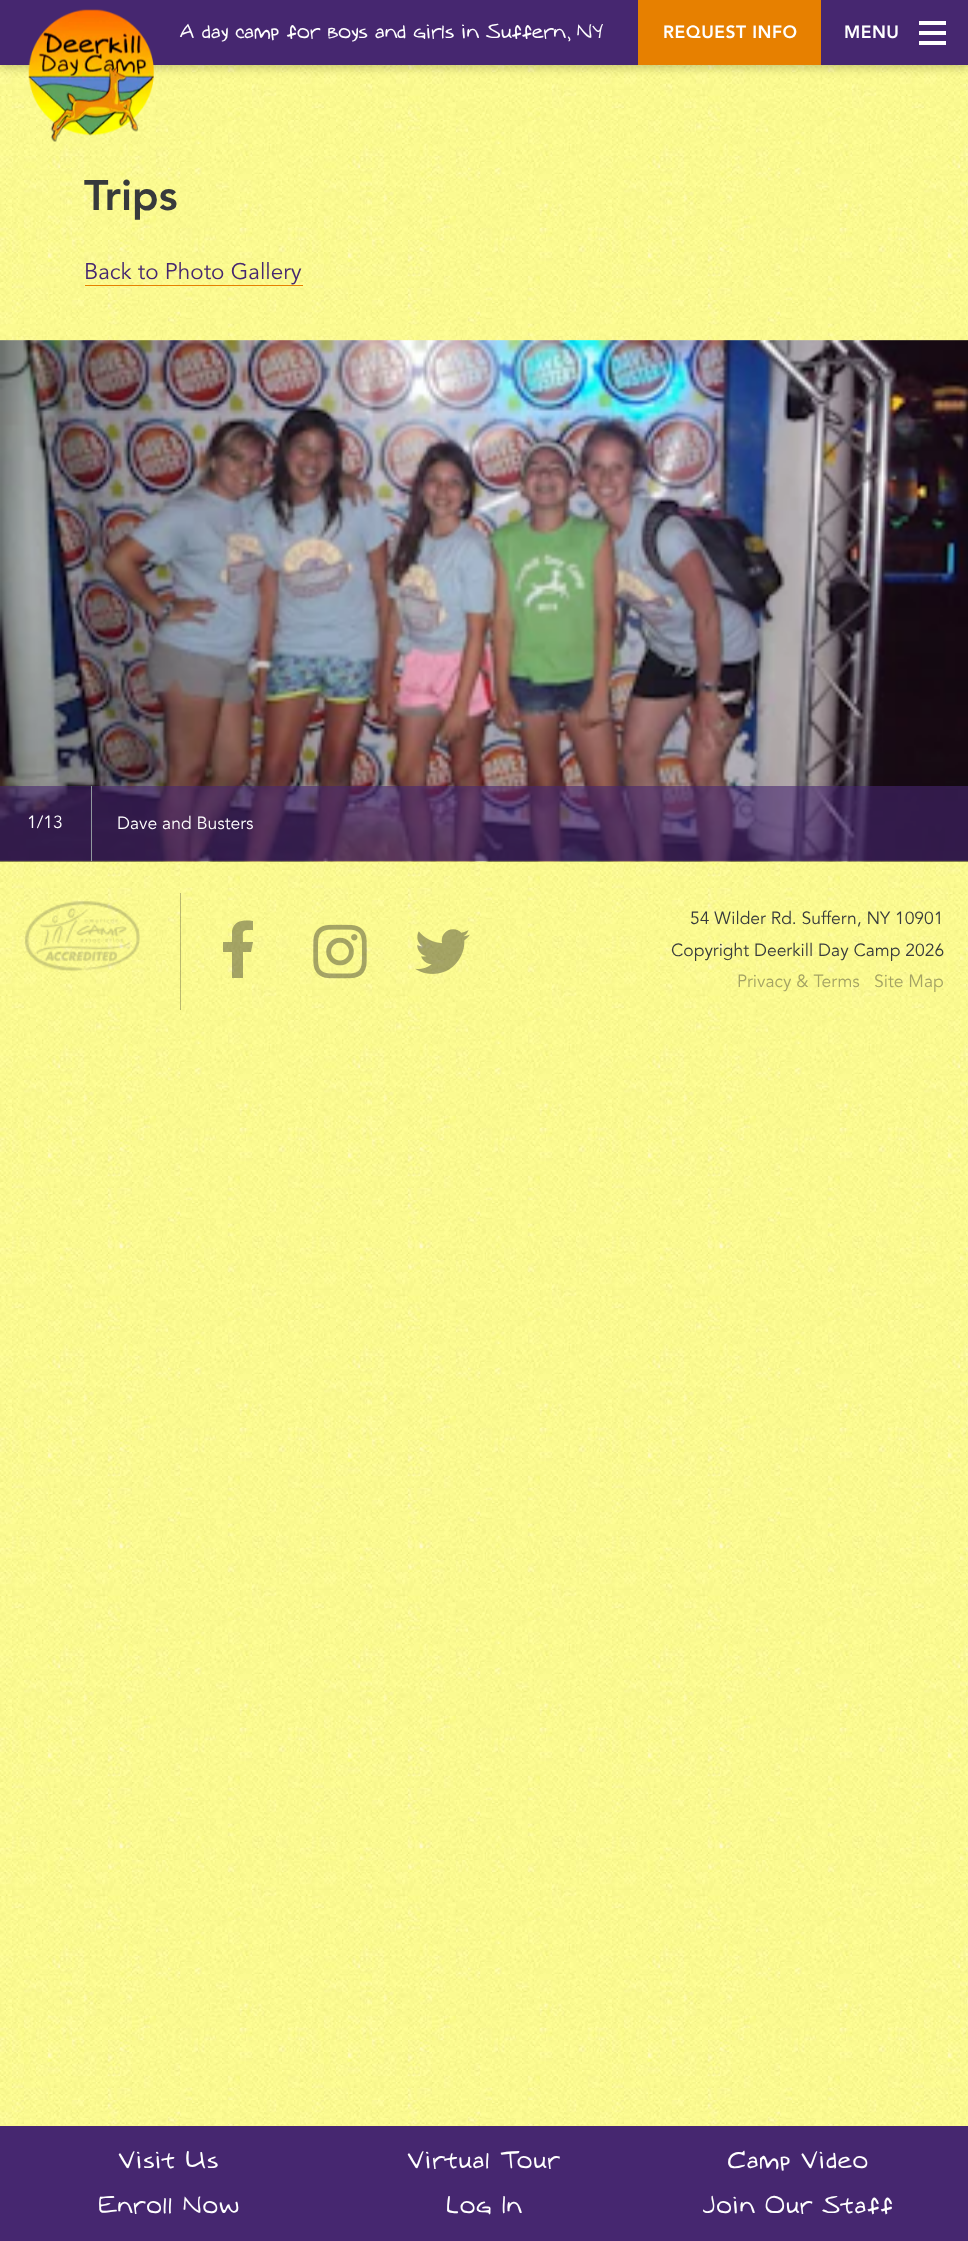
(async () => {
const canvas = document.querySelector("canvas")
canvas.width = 968
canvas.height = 2241
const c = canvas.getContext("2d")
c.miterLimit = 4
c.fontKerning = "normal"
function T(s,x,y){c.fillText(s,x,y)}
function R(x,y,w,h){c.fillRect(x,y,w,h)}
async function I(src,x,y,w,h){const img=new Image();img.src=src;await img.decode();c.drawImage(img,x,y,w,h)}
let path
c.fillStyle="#fff"
R(0,0,968,2241)
await I("1.png",0,65,968,2061)
c.fillStyle="#00000033"
c.filter="blur(5px)"
c.beginPath()
c.rect(0,3,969,65)
c.fill()
c.filter="none"
c.fillStyle="#462770"
R(0,0,968,65)
await I("2.png",28,9,126,133)
c.font="18.75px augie"
c.fillStyle="#fff"
T("A day camp for boys and girls in Suffern, NY",180,38)
c.fillStyle="#e78000"
R(638,0,183,65)
c.letterSpacing="0.5px"
c.font="900 17.5px 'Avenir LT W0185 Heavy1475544'"
c.fillStyle="#fff"
T("REQUEST INFO",663,38)
T("MENU",844,38)
R(919,21,27,4)
R(919,31,27,4)
R(919,41,27,4)
c.letterSpacing="0px"
c.font="900 42.5px 'Avenir LT W0185 Heavy1475544'"
c.fillStyle="#373a3c"
T("Trips",84,210)
c.font="22.5px 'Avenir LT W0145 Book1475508'"
c.fillStyle="#462770"
T("Back to Photo Gallery",84,279)
c.fillStyle="#e78000"
R(85,285,218,1)
await I("3.png",0,340,968,522)
c.fillStyle="#46277099"
R(0,786,968,75)
c.fillStyle="#90999e"
R(91,786,1,75)
c.font="17.5px 'Avenir LT W0145 Book1475508'"
c.fillStyle="#fff"
T("1/13",27,828)
T("Dave and Busters",117,829)
c.fillStyle="#2222224d"
R(180,893,1,117)
await I("4.png",25,901,115,70)
c.fillStyle="#22222266"
path = new Path2D("M253 921v9c-12 0-10 0-10 12h10l-2 10h-8v26h-11v-26h-9v-10h9v-11c2-11 12-11 21-10z")
c.fill(path)
await I("5.png",313,924,54,55)
await I("6.png",415,929,55,45)
c.fillStyle="#373a3c"
T("54 Wilder Rd. Suffern, NY 10901",690,924)
T("Copyright Deerkill Day Camp 2026",671,956)
c.fillStyle="#a4a364"
T("Privacy & Terms",737,987)
T("Site Map",874,987)
c.fillStyle="#462770"
R(0,2126,968,115)
c.letterSpacing="0.9px"
c.font="22.5px augie"
c.fillStyle="#fff"
T("Visit Us",119,2168)
T("Virtual Tour",408,2168)
T("Camp Video",728,2168)
T("Enroll Now",99,2213)
T("Log In",447,2213)
T("Join Our Staff",703,2213)
})()
